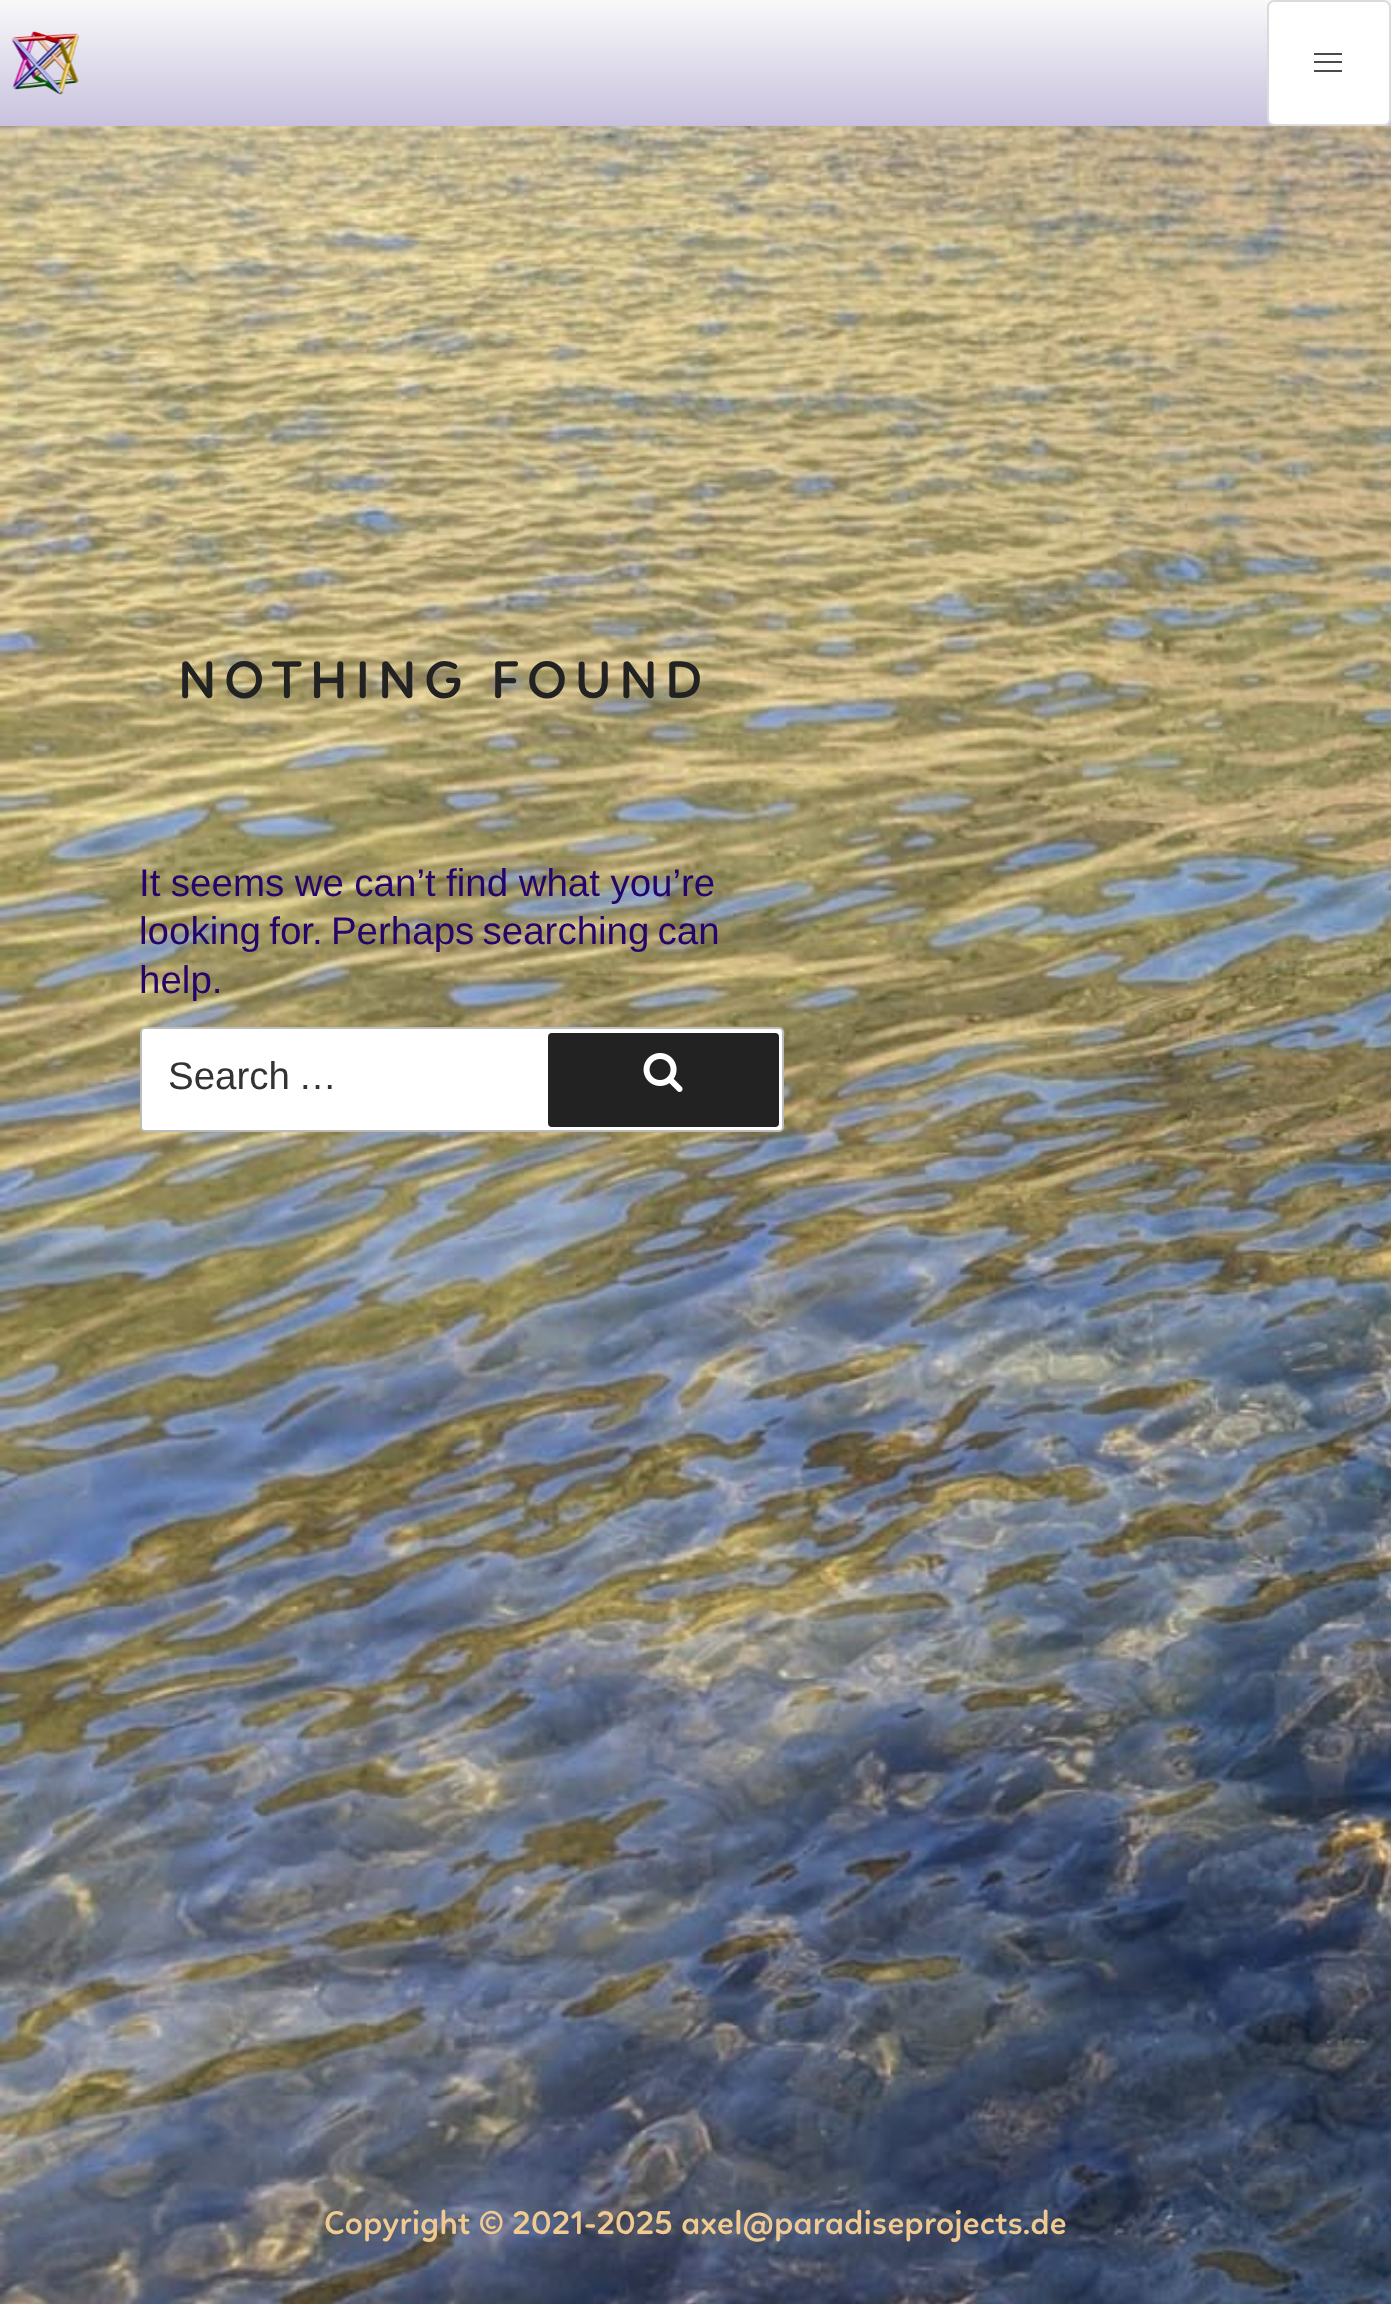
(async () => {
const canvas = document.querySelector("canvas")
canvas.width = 1391
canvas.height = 2304
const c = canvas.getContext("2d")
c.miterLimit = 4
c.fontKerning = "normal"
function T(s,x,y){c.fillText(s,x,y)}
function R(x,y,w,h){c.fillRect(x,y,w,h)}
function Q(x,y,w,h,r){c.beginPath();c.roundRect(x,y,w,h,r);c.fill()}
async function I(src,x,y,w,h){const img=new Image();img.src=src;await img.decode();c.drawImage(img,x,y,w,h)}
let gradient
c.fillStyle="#fff"
R(0,0,1391,2304)
await I("1.png",0,126,1391,2178)
gradient = c.createLinearGradient(687,126,687,0)
gradient.addColorStop(0,"#c8c1de")
gradient.addColorStop(1,"#f9f9f9")
c.fillStyle = gradient
R(0,0,1391,126)
await I("2.png",11,31,69,64)
c.fillStyle="#fff"
c.beginPath()
c.roundRect(1268,1,122,124,6)
c.fill()
c.strokeStyle="#dbdbdb"
c.lineWidth=2
c.stroke()
c.fillStyle="#4a4a4a"
R(1314,53,28,2)
R(1314,61,28,2)
R(1314,70,28,2)
c.letterSpacing="7.5px"
c.font="600 54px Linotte"
c.fillStyle="#222"
T("NOTHING FOUND",178,698)
c.letterSpacing="0px"
c.wordSpacing="-0.25px"
c.font="38.5px Liberation Sans"
c.fillStyle="#24046a"
T("It seems we can’t find what you’re",139,896)
c.wordSpacing="-2.5px"
T("looking for. Perhaps searching can",139,944)
c.wordSpacing="0px"
T("help.",139,993)
c.fillStyle="#fff"
c.beginPath()
c.roundRect(141,1028,642,103,4)
c.fill()
c.strokeStyle="#bbb"
c.stroke()
c.wordSpacing="-2.5px"
c.fillStyle="#333"
T("Search …",168,1089)
c.fillStyle="#222"
Q(548,1033,231,94,4)
await I("3.png",643,1053,40,39)
c.wordSpacing="0px"
c.font="600 33.7px Linotte"
c.fillStyle="#f0ca91"
T("Copyright © 2021-2025 axel@paradiseprojects.de",324,2234)
})()
